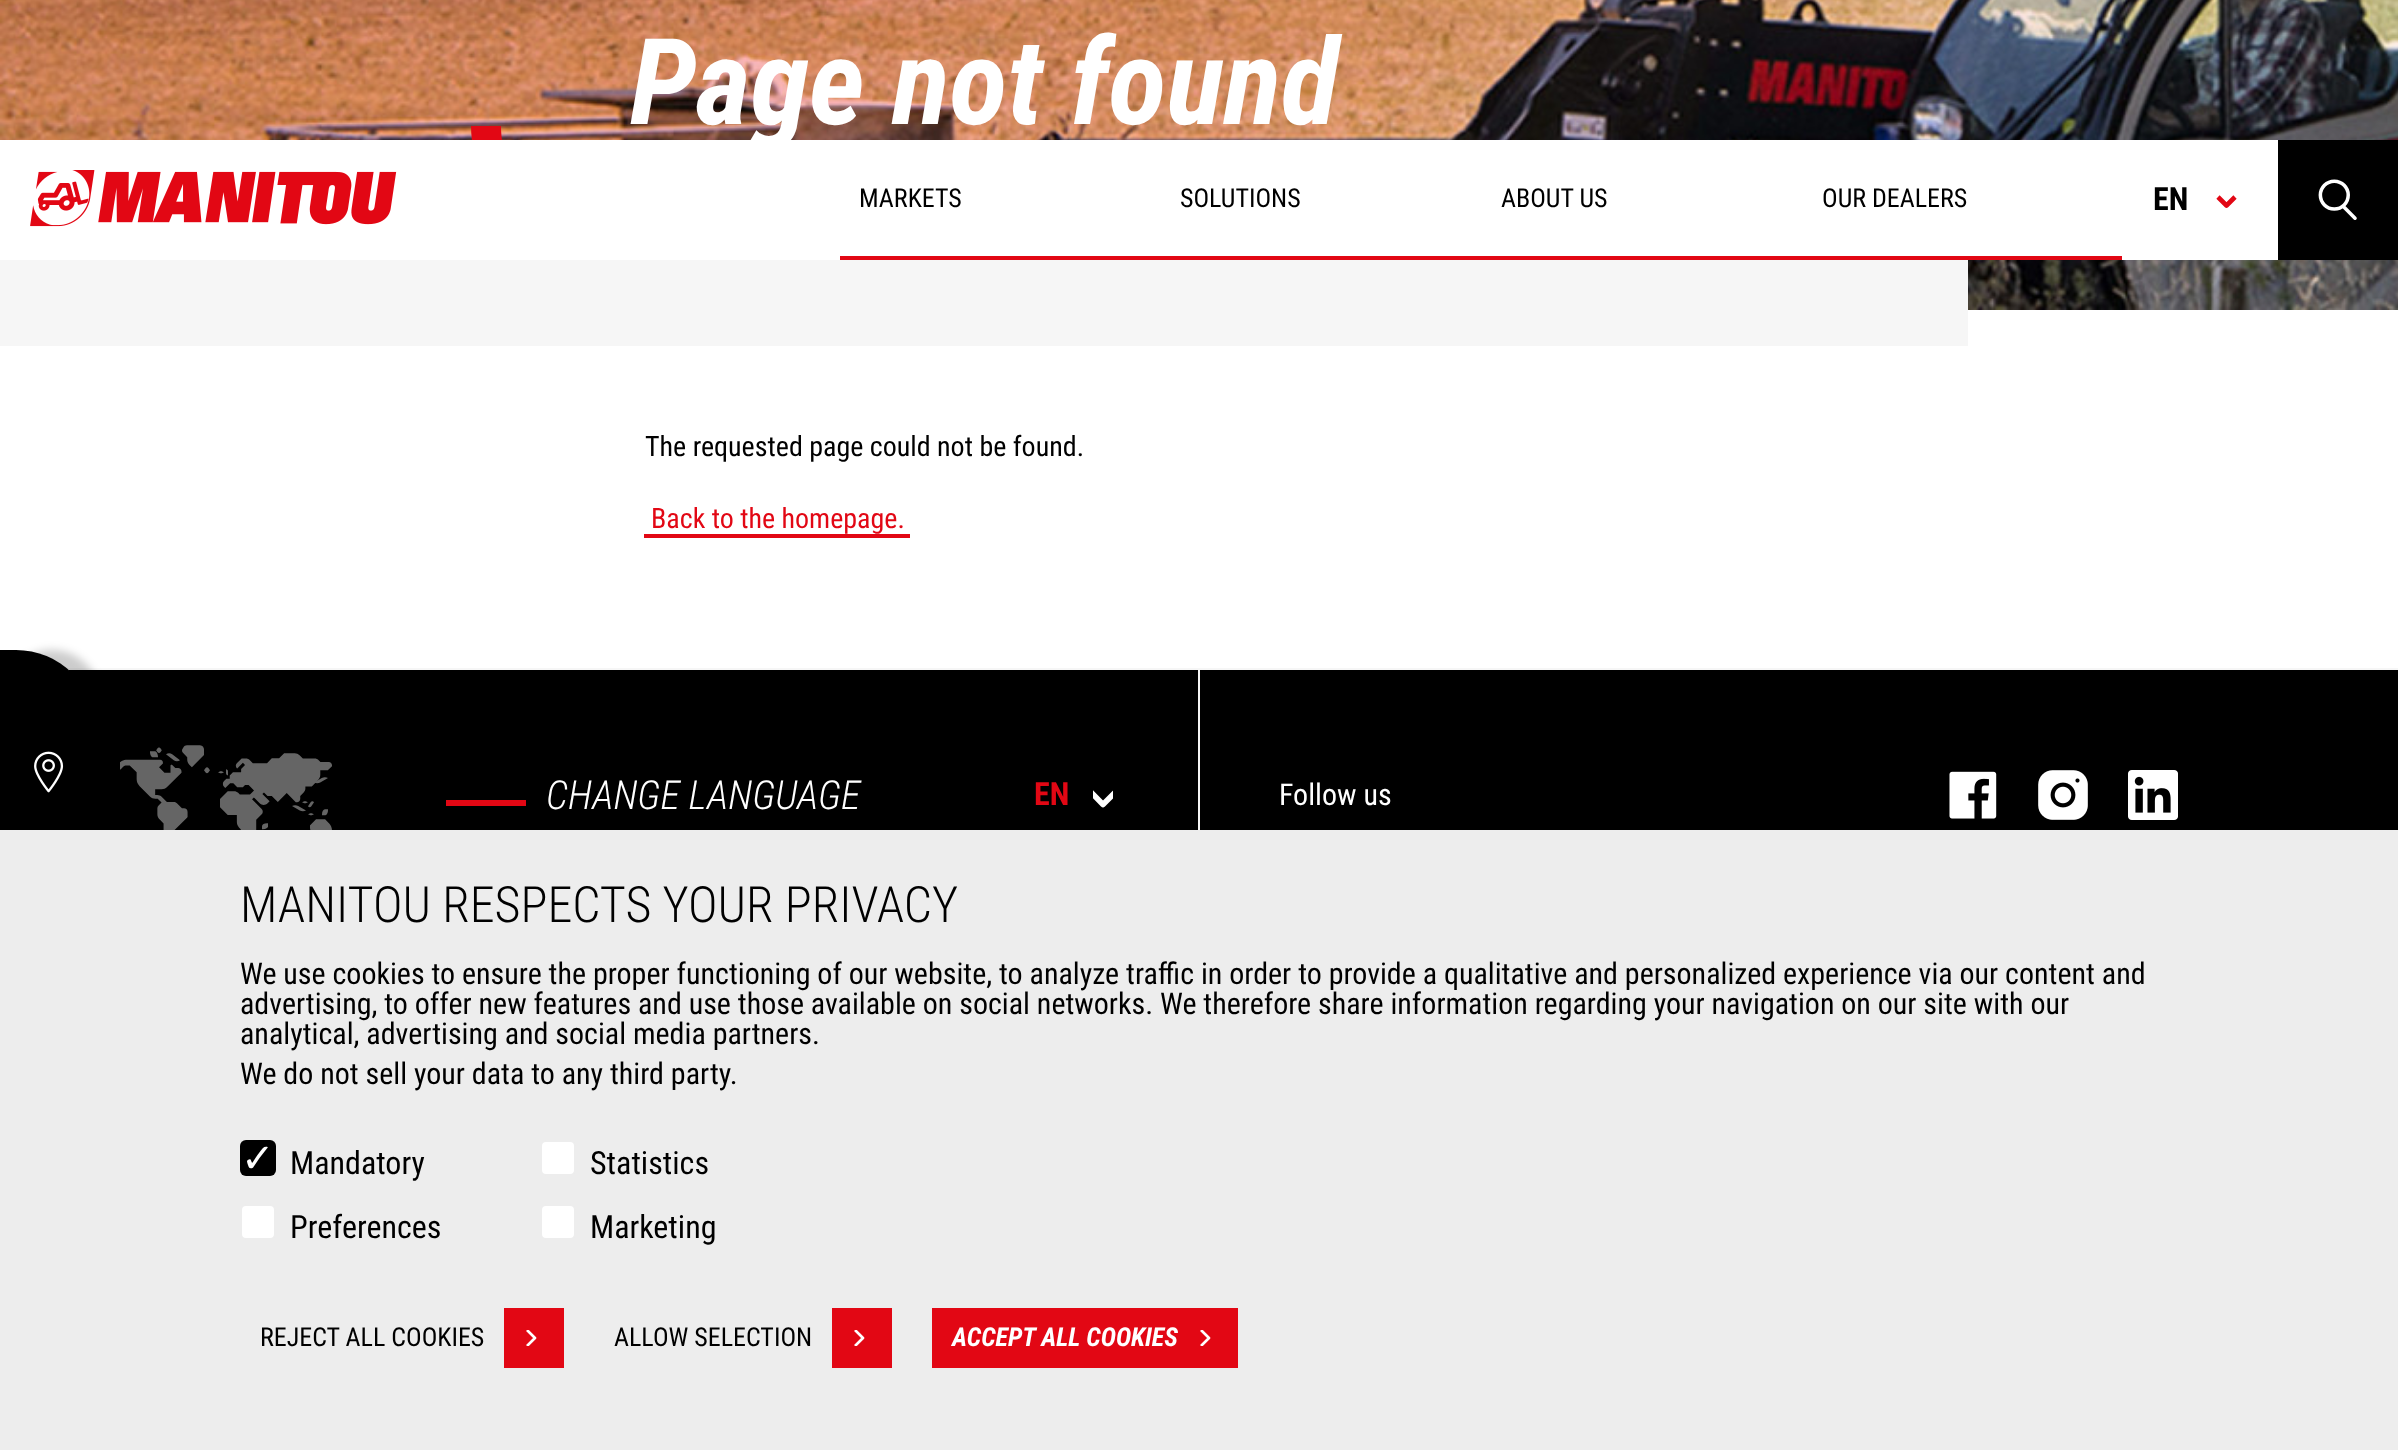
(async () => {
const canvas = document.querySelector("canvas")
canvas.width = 2398
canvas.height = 1450
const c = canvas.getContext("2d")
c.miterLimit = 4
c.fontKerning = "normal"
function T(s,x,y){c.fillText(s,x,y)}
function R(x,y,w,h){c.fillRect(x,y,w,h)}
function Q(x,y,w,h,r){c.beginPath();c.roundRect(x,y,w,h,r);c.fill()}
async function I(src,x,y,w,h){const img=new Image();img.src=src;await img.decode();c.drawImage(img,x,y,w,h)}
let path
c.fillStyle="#fff"
R(0,0,2398,1450)
await I("1.png",0,0,2398,310)
c.font="italic bold 120px Roboto Condensed"
T("Page not found",630,124)
c.fillStyle="#e20714"
path = new Path2D("M471 126h30c0 54 43 99 97 99v30c-71 0-126-59-127-129z")
c.fill(path)
c.fillStyle="#f6f6f6"
R(0,260,1968,86)
c.font="28px Roboto Condensed"
c.fillStyle="#000"
T("The requested page could not be found.",645,456)
c.fillStyle="#e20714"
T("Back to the homepage.",651,528)
R(644,534,266,4)
c.fillStyle="#fff"
R(0,140,2278,120)
await I("2.png",30,170,367,57)
c.fillStyle="#e20714"
R(840,256,1282,4)
c.font="26px Roboto Condensed"
c.fillStyle="#000"
T("MARKETS",859,207)
T("SOLUTIONS",1180,207)
T("ABOUT US",1501,207)
T("OUR DEALERS",1822,207)
c.font="bold 32px Roboto Condensed"
T("EN",2153,210)
path = new Path2D("M2235 197l-8.5 8.5l-8.5-8.5")
c.strokeStyle="#e20714"
c.lineWidth=4.6
c.lineJoin="round"
c.stroke(path)
R(2278,140,120,120)
await I("3.png",2318,179,39,41)
R(69,670,2329,160)
c.fillStyle="#f6f6f6"
R(66,668,2332,2)
c.fillStyle="#00000033"
c.filter="blur(4px)"
c.beginPath()
c.roundRect(4,650,96,800,80)
c.fill()
c.filter="none"
c.fillStyle="#000"
c.beginPath()
c.roundRect(0,650,96,800,[0,80,0,0])
c.fill()
await I("4.png",34,751,30,42)
c.fillStyle="#f6f6f6"
R(1198,670,2,160)
await I("5.png",120,745,212,85)
c.fillStyle="#e20714"
R(446,800,80,6)
c.font="italic 300 40px Roboto Condensed"
c.fillStyle="#fff"
T("CHANGE LANGUAGE",546,809)
c.font="bold 32px Roboto Condensed"
c.fillStyle="#e20714"
T("EN",1034,805)
c.save()
path = new Path2D("M1113 781v28h-20v-28z")
c.clip(path)
path = new Path2D("M1120 787.5l-17 17l-16.5-17")
c.strokeStyle="#fff"
c.lineWidth=5.6
c.stroke(path)
c.restore()
c.font="30px Roboto Condensed"
c.fillStyle="#fff"
T("Follow us",1279,805)
await I("6.png",1949,771,48,48)
await I("7.png",2038,770,50,50)
await I("8.png",2128,770,50,50)
c.fillStyle="#ededed"
R(0,830,2398,620)
c.font="300 50px Roboto Condensed"
c.fillStyle="#000"
T("MANITOU RESPECTS YOUR PRIVACY",240,922)
c.font="30px Roboto Condensed"
T("We use cookies to ensure the proper functioning of our website, to analyze traffic in order to provide a qualitative and personalized experience via our content and",240,984)
T("advertising, to offer new features and use those available on social networks. We therefore share information regarding your navigation on our site with our",240,1014)
T("analytical, advertising and social media partners.",240,1044)
T("We do not sell your data to any third party.",240,1084)
Q(240,1140,36,36,6)
c.font="40px DejaVu Sans"
c.fillStyle="#fff"
T("✓",241,1172)
c.font="32px Roboto Condensed"
c.fillStyle="#000"
T("Mandatory",290,1174)
c.fillStyle="#fff"
c.beginPath()
c.roundRect(541,1141,34,34,5)
c.fill()
c.strokeStyle="#ededed"
c.lineWidth=2
c.lineJoin="miter"
c.stroke()
c.fillStyle="#000"
T("Statistics",590,1174)
c.fillStyle="#fff"
c.beginPath()
c.roundRect(241,1205,34,34,5)
c.fill()
c.stroke()
c.fillStyle="#000"
T("Preferences",290,1238)
c.fillStyle="#fff"
c.beginPath()
c.roundRect(541,1205,34,34,5)
c.fill()
c.stroke()
c.fillStyle="#000"
T("Marketing",590,1238)
c.font="26px Roboto Condensed"
T("REJECT ALL COOKIES",260,1346)
c.fillStyle="#e20714"
R(504,1308,60,60)
await I("9.png",526,1330,11,16)
c.fillStyle="#000"
T("ALLOW SELECTION",614,1346)
c.fillStyle="#e20714"
R(832,1308,60,60)
await I("9.png",854,1330,11,16)
R(932,1308,246,60)
c.font="italic bold 26px Roboto Condensed"
c.fillStyle="#fff"
T("ACCEPT ALL COOKIES",952,1346)
c.fillStyle="#e20714"
R(1178,1308,60,60)
await I("9.png",1200,1330,11,16)
})()
